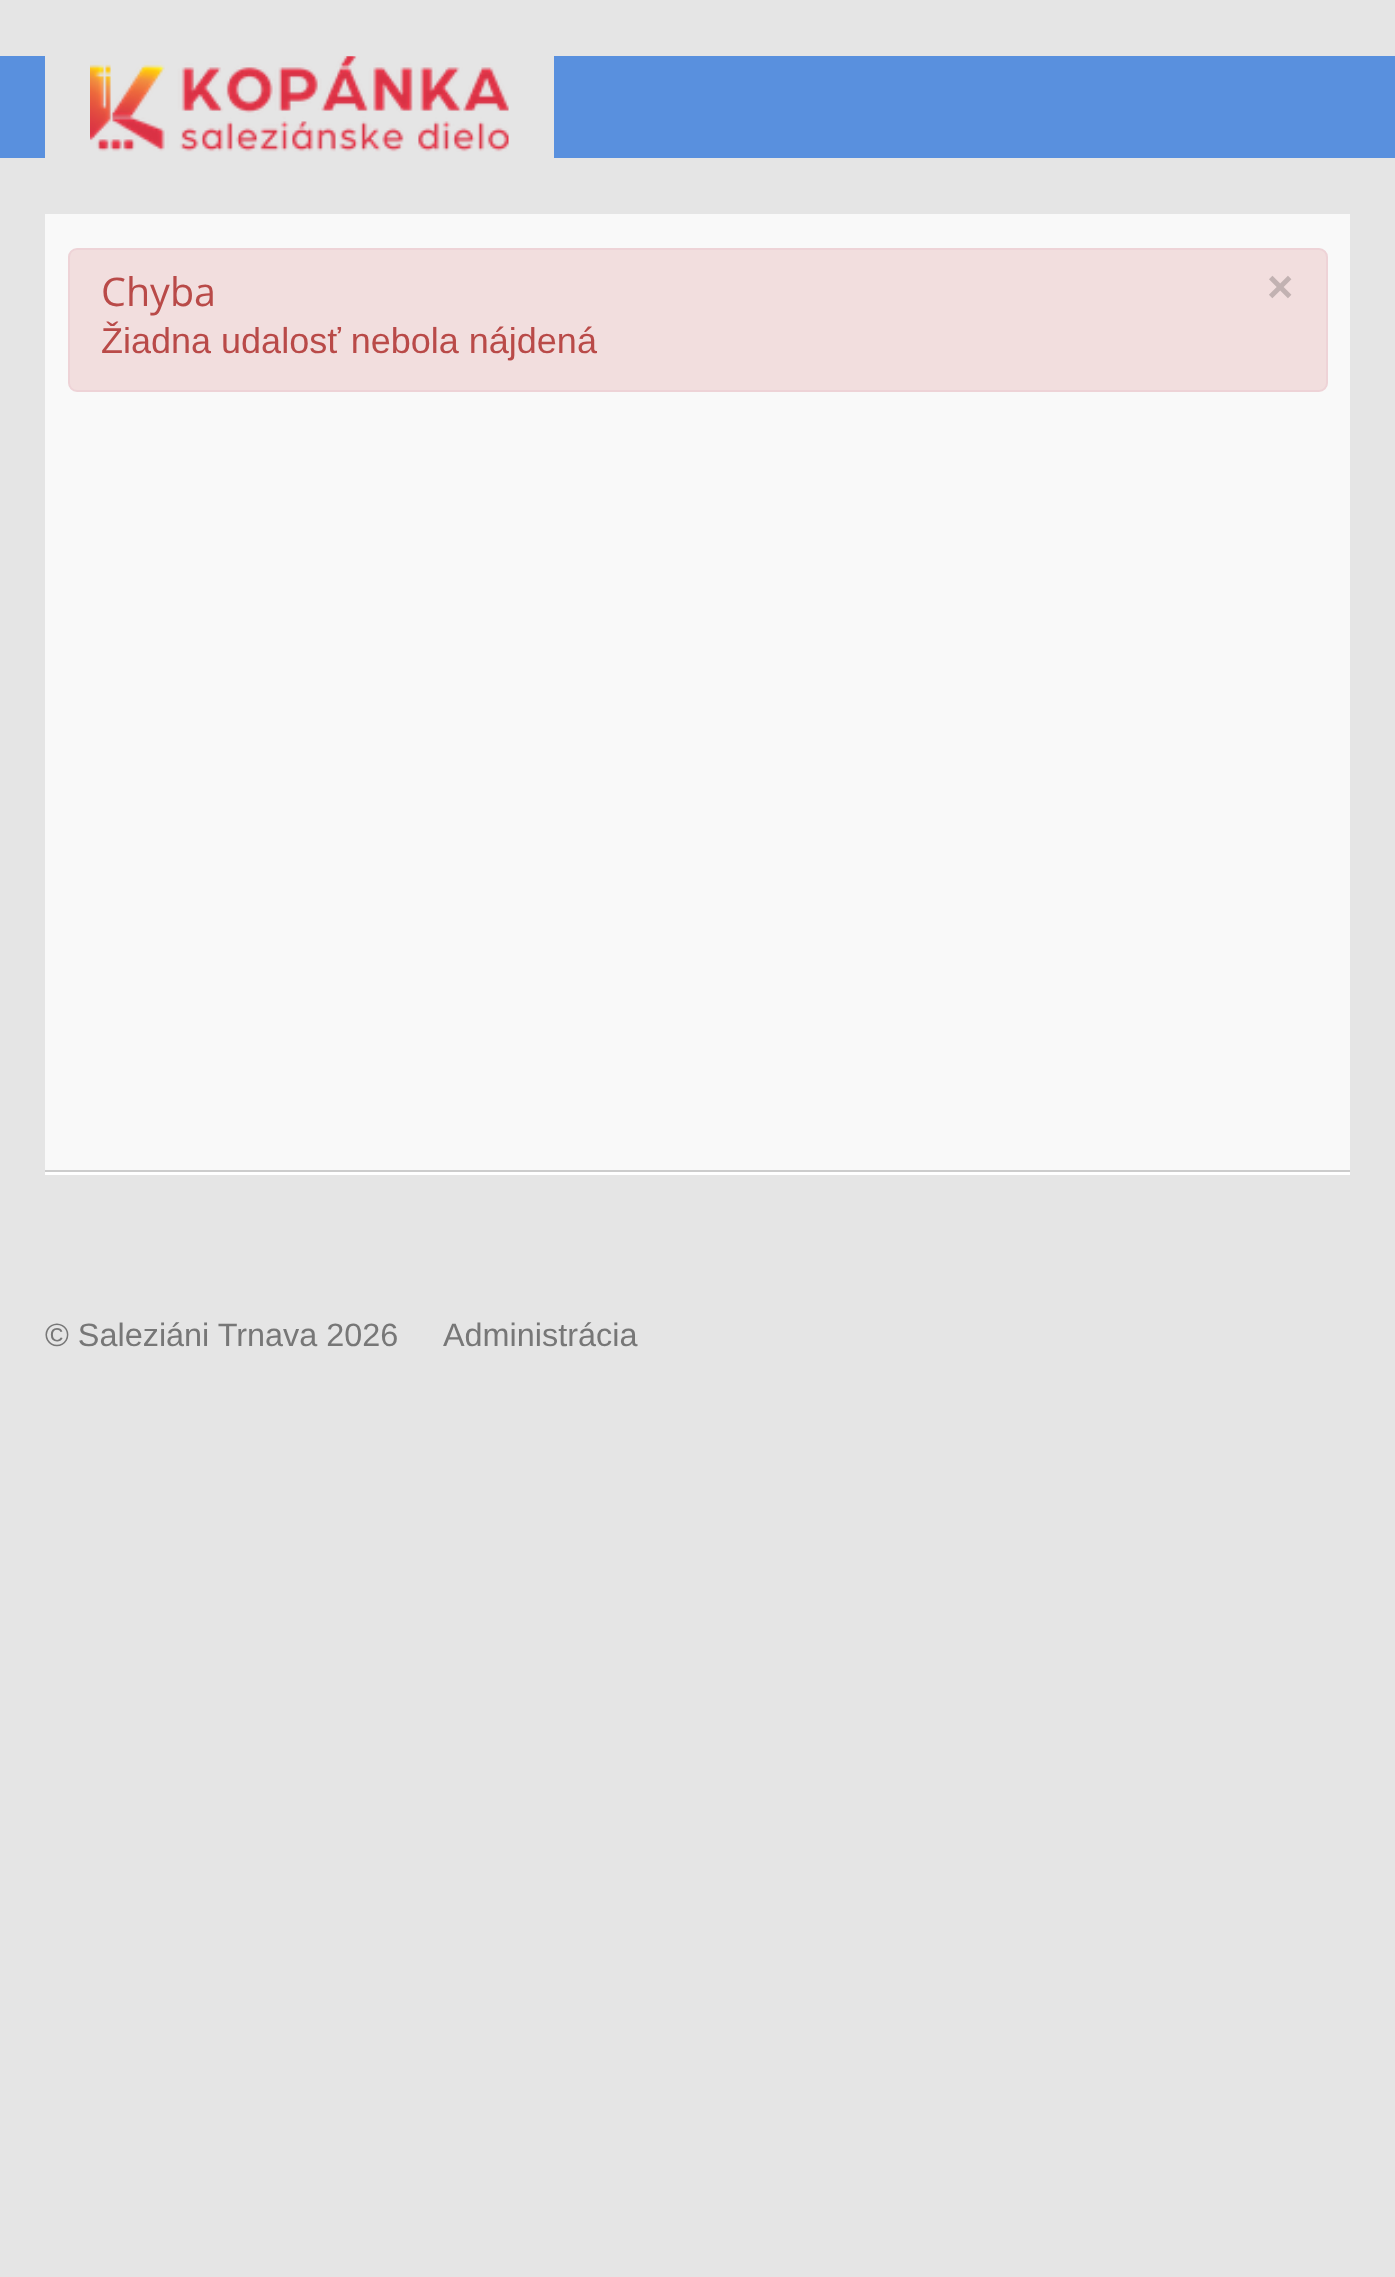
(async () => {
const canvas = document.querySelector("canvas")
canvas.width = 1395
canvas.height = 2277
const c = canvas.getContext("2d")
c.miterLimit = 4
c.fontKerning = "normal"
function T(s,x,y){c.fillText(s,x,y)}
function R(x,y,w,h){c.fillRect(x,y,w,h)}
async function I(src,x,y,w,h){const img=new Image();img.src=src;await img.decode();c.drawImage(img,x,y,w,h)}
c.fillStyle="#e5e5e5"
R(0,0,1395,2277)
c.fillStyle="#5990de"
R(0,56,1395,102)
c.fillStyle="#e5e5e5"
R(45,56,509,102)
await I("1.png",90,56,419,96)
c.fillStyle="#fff"
R(45,1172,1305,3)
c.fillStyle="#f9f9f9"
R(45,214,1305,956)
c.fillStyle="#ccc"
R(45,1170,1305,2)
c.fillStyle="#f2dede"
c.beginPath()
c.roundRect(69,249,1258,142,8)
c.fill()
c.strokeStyle="#eed3d7"
c.lineWidth=2
c.stroke()
c.font="39.5px Open Sans"
c.fillStyle="#b94a48"
T("Chyba",101,306)
c.font="bold 45px Liberation Sans"
c.fillStyle="#c2b2b2"
T("×",1267,302)
c.font="36px Liberation Sans"
c.fillStyle="#b94a48"
T("Žiadna udalosť nebola nájdená",101,353)
c.font="32.4px Liberation Sans"
c.fillStyle="#777"
T("© Saleziáni Trnava 2026",45,1346)
T("Administrácia",443,1346)
})()
